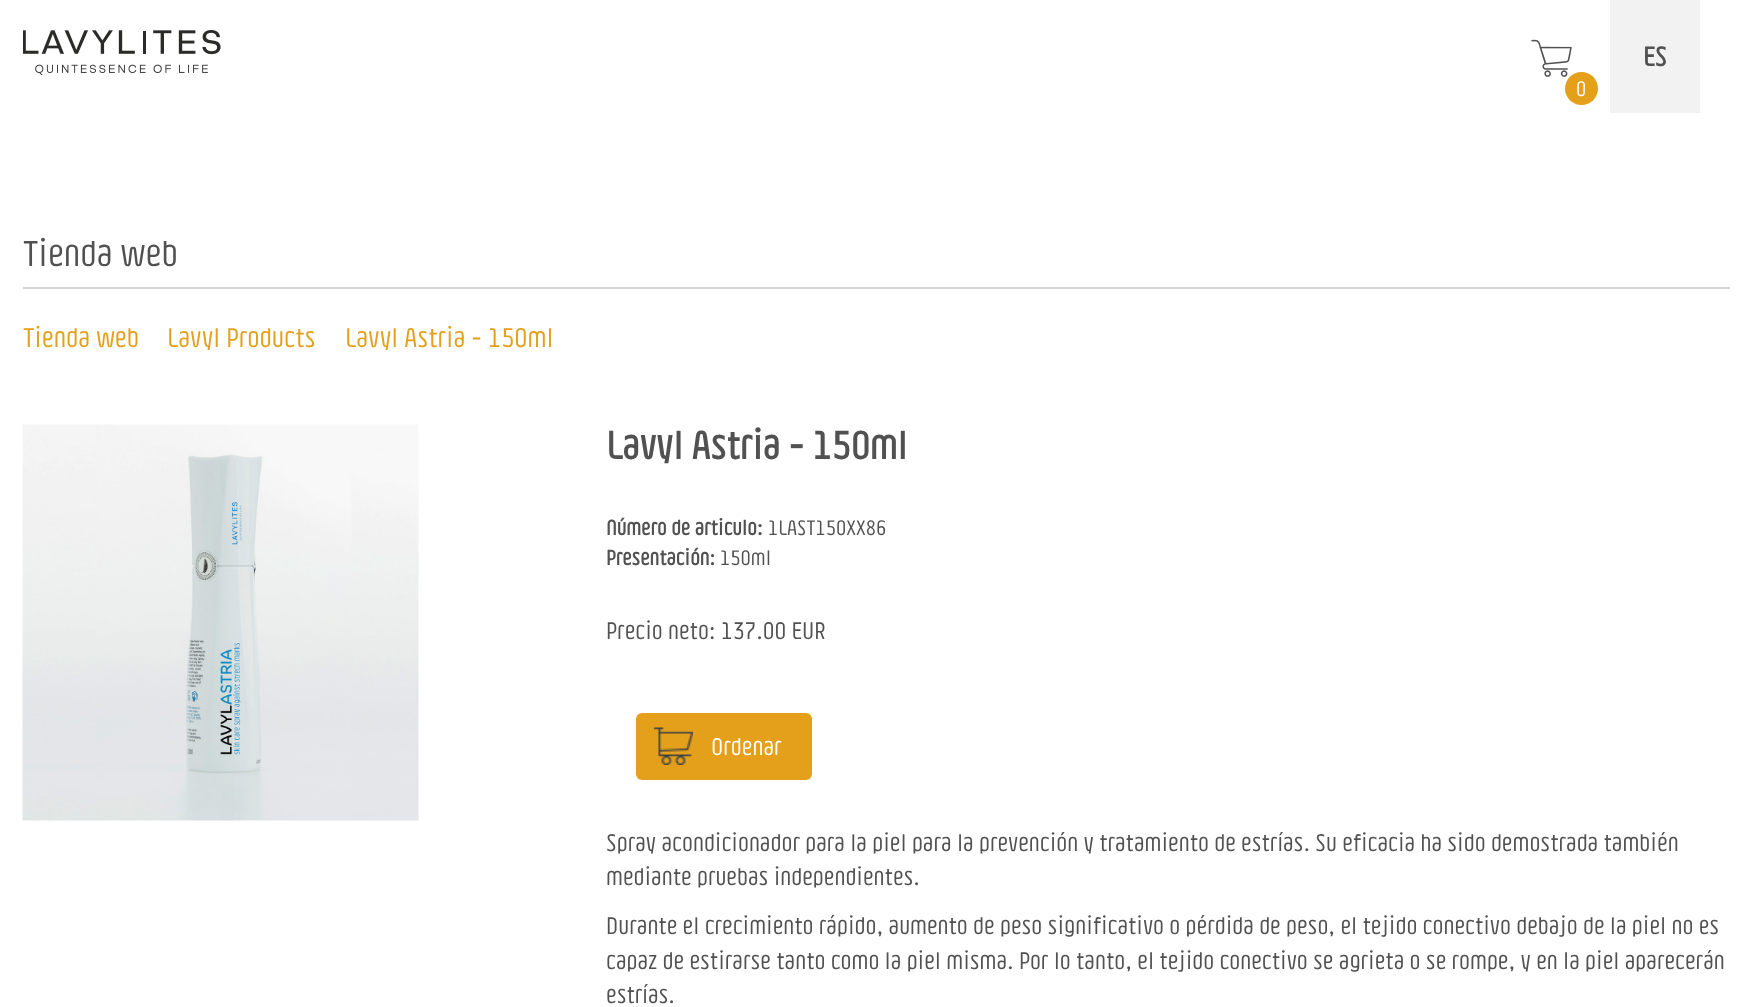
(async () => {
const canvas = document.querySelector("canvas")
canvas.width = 1752
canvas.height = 1007
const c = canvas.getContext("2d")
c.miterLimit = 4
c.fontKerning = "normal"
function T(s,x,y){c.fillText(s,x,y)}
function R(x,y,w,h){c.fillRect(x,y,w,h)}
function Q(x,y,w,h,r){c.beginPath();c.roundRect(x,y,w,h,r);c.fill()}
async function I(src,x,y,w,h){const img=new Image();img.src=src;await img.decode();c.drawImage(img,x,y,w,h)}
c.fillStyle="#fff"
R(0,0,1752,1007)
await I("1.png",23,30,198,45)
c.fillStyle="#f2f2f2"
R(1610,0,90,113)
c.font="bold 27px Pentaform"
c.fillStyle="#515151"
T("ES",1643,66)
await I("2.png",1531,39,41,38)
c.fillStyle="#e4a01b"
c.beginPath()
c.arc(1581.5,88.5,16.5,0,7)
c.fill()
c.font="21px Pentaform"
c.fillStyle="#fff"
T("0",1576,96)
c.font="36px Pentaform"
c.fillStyle="#515151"
T("Tienda web",23,266)
c.fillStyle="#d5d5d5"
R(23,287,1707,2)
c.font="27px Pentaform"
c.fillStyle="#e4a01b"
T("Tienda web",23,347)
T("Lavyl Products",167,347)
T("Lavyl Astria - 150ml",345,347)
await I("3.png",22,424,397,397)
c.font="bold 39px Pentaform"
c.fillStyle="#515151"
T("Lavyl Astria - 150ml",606,459)
c.font="bold 21px Pentaform"
T("Número de articulo:",606,535)
c.font="21px Pentaform"
T("1LAST150XX86",768,535)
c.font="bold 21px Pentaform"
T("Presentación:",606,565)
c.font="21px Pentaform"
T("150ml",720,565)
c.font="24px Pentaform"
T("Precio neto: 137.00 EUR",606,639)
c.fillStyle="#e4a01b"
Q(636,713,176,67,6)
await I("4.png",654,727,39,38)
c.fillStyle="#fff"
T("Ordenar",711,755)
c.fillStyle="#515151"
T("Spray acondicionador para la piel para la prevención y tratamiento de estrías. Su eficacia ha sido demostrada también",606,851)
T("mediante pruebas independientes.",606,885)
T("Durante el crecimiento rápido, aumento de peso significativo o pérdida de peso, el tejido conectivo debajo de la piel no es",606,934)
T("capaz de estirarse tanto como la piel misma. Por lo tanto, el tejido conectivo se agrieta o se rompe, y en la piel aparecerán",606,969)
T("estrías.",606,1003)
})()
